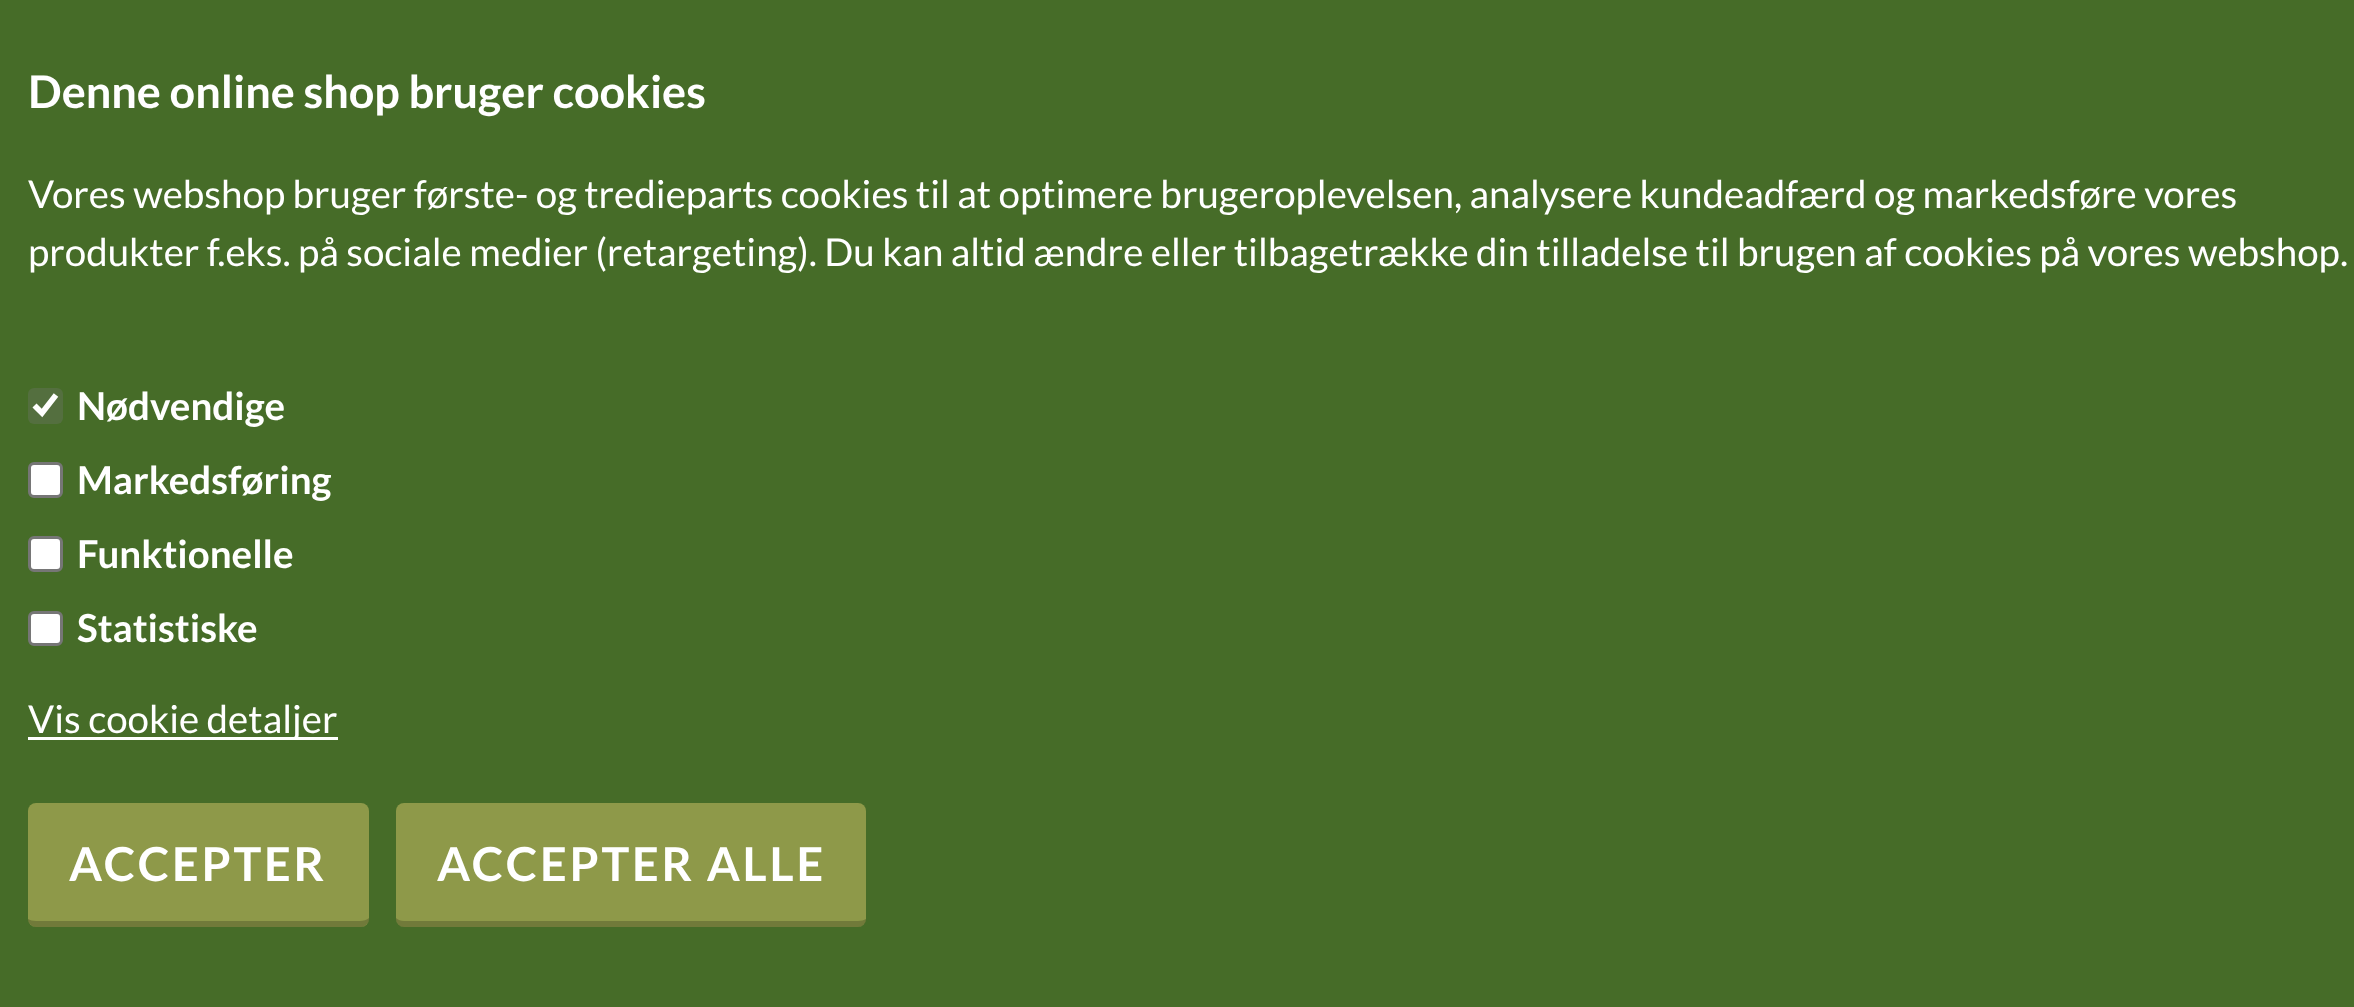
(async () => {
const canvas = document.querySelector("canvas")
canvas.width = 2354
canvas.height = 1007
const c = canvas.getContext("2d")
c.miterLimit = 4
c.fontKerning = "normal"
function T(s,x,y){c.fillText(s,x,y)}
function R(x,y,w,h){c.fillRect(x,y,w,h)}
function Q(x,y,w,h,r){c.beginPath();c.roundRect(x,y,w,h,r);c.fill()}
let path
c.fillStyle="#466c28"
R(0,0,2354,1007)
c.font="bold 45px Lato"
c.fillStyle="#fff"
T("Denne online shop bruger cookies",28,108)
c.font="38.5px Lato"
T("Vores webshop bruger første- og tredieparts cookies til at optimere brugeroplevelsen, analysere kundeadfærd og markedsføre vores",28,208)
T("produkter f.eks. på sociale medier (retargeting). Du kan altid ændre eller tilbagetrække din tilladelse til brugen af cookies på vores webshop.",28,266)
c.fillStyle="#546f3f"
Q(28,388,35,36,6)
path = new Path2D("M34.5 405.5l7.5 7.5l14-18")
c.strokeStyle="#fff"
c.lineWidth=5.7
c.stroke(path)
c.font="bold 38.5px Lato"
c.fillStyle="#fff"
T("Nødvendige",77,420)
c.beginPath()
c.roundRect(29.5,463.5,32,33,4.5)
c.fill()
c.strokeStyle="#767676"
c.lineWidth=3
c.stroke()
T("Markedsføring",77,494)
c.beginPath()
c.roundRect(29.5,537.5,32,33,4.5)
c.fill()
c.stroke()
T("Funktionelle",77,568)
c.beginPath()
c.roundRect(29.5,612.5,32,32,4.5)
c.fill()
c.stroke()
T("Statistiske",77,642)
R(28,737,310,3)
c.font="38.5px Lato"
T("Vis cookie detaljer",28,733)
c.fillStyle="#8e9949"
Q(28,803,341,124,8)
c.fillStyle="#00000033"
path = new Path2D("M28 919c0 4 4 8 8 8h325c4 0 8-4 8-8v-1c-2 2-6 3-9 3h-324c-3 0-6-1-8-2z")
c.fill(path)
c.letterSpacing="2.75px"
c.font="bold 46.75px Lato"
c.fillStyle="#fff"
T("ACCEPTER",69,881)
c.fillStyle="#8e9949"
Q(396,803,470,124,8)
c.fillStyle="#00000033"
path = new Path2D("M396 918c0 5 3 9 8 9h454c5 0 8-4 8-8c-2 1-5 2-8 2h-454c-3 0-6-1-8-3z")
c.fill(path)
c.fillStyle="#fff"
T("ACCEPTER ALLE",437,881)
})()
